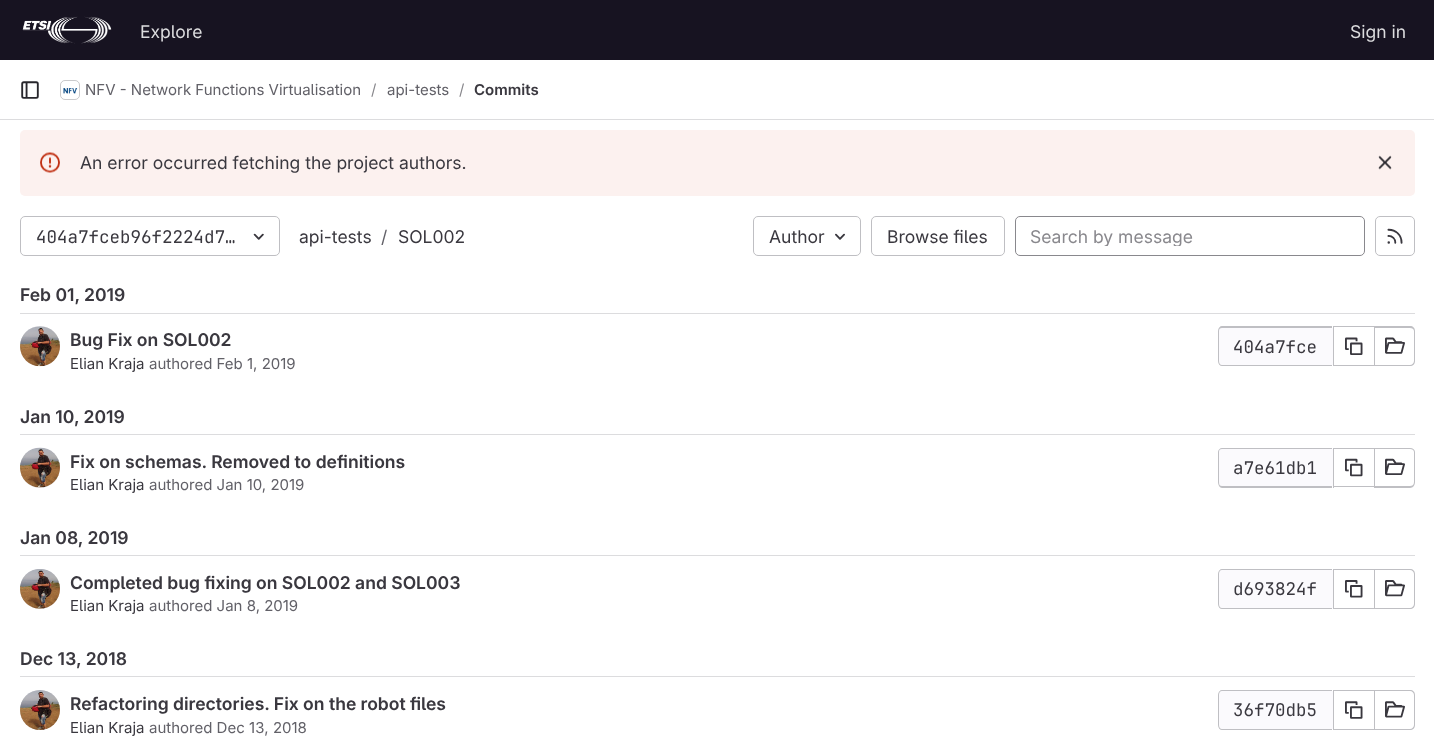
(async () => {
const canvas = document.querySelector("canvas")
canvas.width = 1434
canvas.height = 737
const c = canvas.getContext("2d")
c.miterLimit = 4
c.fontKerning = "normal"
function T(s,x,y){c.fillText(s,x,y)}
function R(x,y,w,h){c.fillRect(x,y,w,h)}
function Q(x,y,w,h,r){c.beginPath();c.roundRect(x,y,w,h,r);c.fill()}
async function I(src,x,y,w,h){const img=new Image();img.src=src;await img.decode();c.drawImage(img,x,y,w,h)}
let path
c.fillStyle="#fff"
R(0,0,1434,737)
c.fillStyle="#171321"
R(0,0,1434,60)
await I("1.png",22,16,90,28)
c.font="17.5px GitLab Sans"
c.fillStyle="#dcdcde"
T("Explore",140,38)
T("Sign in",1350,38)
R(0,119,1434,1)
await I("2.png",21,81,18,18)
c.beginPath()
c.roundRect(60.5,80.5,19,19,4.5)
c.strokeStyle="#dcdcde"
c.stroke()
await I("3.png",61,88,18,9)
c.beginPath()
c.roundRect(60.5,80.5,19,19,4.5)
c.strokeStyle="#05050614"
c.stroke()
c.font="15px GitLab Sans"
c.fillStyle="#626168"
T("NFV - Network Functions Virtualisation",85,95)
c.fillStyle="#89888d"
T("/",371,95)
c.fillStyle="#626168"
T("api-tests",387,95)
c.fillStyle="#89888d"
T("/",459,95)
c.font="600 15px GitLab Sans"
c.fillStyle="#3a383f"
T("Commits",474,95)
c.fillStyle="#fcf1ef"
Q(20,130,1395,66,5)
await I("4.png",40,152,20,21)
c.font="17.5px GitLab Sans"
c.fillStyle="#3a383f"
T("An error occurred fetching the project authors.",80,169)
await I("5.png",1378,155,14,15)
c.beginPath()
c.roundRect(20.5,216.5,259,39,4.5)
c.strokeStyle="#bfbfc3"
c.stroke()
c.font="17.5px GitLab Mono"
T("404a7fceb96f2224d7…",36,243)
await I("6.png",253,233,11,7)
c.font="17.5px GitLab Sans"
T("api-tests",299,243)
c.fillStyle="#626168"
T("/",381,243)
c.fillStyle="#3a383f"
T("SOL002",398,243)
c.beginPath()
c.roundRect(753.5,216.5,107,39,4.5)
c.stroke()
T("Author",769,243)
await I("7.png",835,233,10,7)
c.beginPath()
c.roundRect(871.5,216.5,133,39,4.5)
c.stroke()
T("Browse files",887,243)
c.beginPath()
c.roundRect(1015.5,216.5,349,39,4.5)
c.strokeStyle="#89888d"
c.stroke()
c.save()
c.beginPath()
c.rect(1030,225,320,21)
c.clip()
c.fillStyle="#89888d"
T("Search by message",1030,243)
c.restore()
c.beginPath()
c.roundRect(1375.5,216.5,39,39,4.5)
c.strokeStyle="#bfbfc3"
c.stroke()
await I("8.png",1387,228,16,16)
c.font="600 17.5px GitLab Sans"
T("Feb 01, 2019",20,301)
c.fillStyle="#dcdcde"
R(20,313,1395,1)
c.beginPath()
c.arc(40,346,19.5,0,7)
c.strokeStyle="#e8e7e9"
c.stroke()
await I("9.png",20,326,40,41)
c.fillStyle="#3a383f"
T("Bug Fix on SOL002",70,346)
c.font="15px GitLab Sans"
T("Elian Kraja",70,369)
c.fillStyle="#626168"
T("authored Feb 1, 2019",149,369)
c.fillStyle="#fbfafd"
c.beginPath()
c.roundRect(1219,328,114,37,[4,0,0,4])
c.fill()
c.fillStyle="#bfbfc3"
path = new Path2D("M1222 326h110v40h-110c-2 0-4-2-4-5v-30c0-3 2-5 4-5zm0 2h110v37h-110c-2 0-3-2-3-4v-30c0-2 1-3 3-3z")
c.fill(path,"evenodd")
c.font="17.5px GitLab Mono"
c.fillStyle="#3a383f"
T("404a7fce",1233,353)
c.fillStyle="#bfbfc3"
R(1334,326,40,1)
R(1334,365,40,1)
R(1333,326,1,40)
await I("10.png",1345,337,18,18)
path = new Path2D("M1375 326h35c3 0 5 2 5 5v30c0 3-2 5-5 5h-35zm0 2h35c2 0 4 1 4 3v30c0 2-2 4-4 4h-35z")
c.fill(path,"evenodd")
R(1374,326,1,40)
await I("11.png",1385,337,20,17)
c.font="600 17.5px GitLab Sans"
c.fillStyle="#3a383f"
T("Jan 10, 2019",20,423)
c.fillStyle="#dcdcde"
R(20,434,1395,1)
c.beginPath()
c.arc(40,468,19.5,0,7)
c.stroke()
await I("12.png",20,447,40,41)
c.fillStyle="#3a383f"
T("Fix on schemas. Removed to definitions",70,468)
c.font="15px GitLab Sans"
T("Elian Kraja",70,490)
c.fillStyle="#626168"
T("authored Jan 10, 2019",149,490)
c.fillStyle="#fbfafd"
c.beginPath()
c.roundRect(1219,449,114,37,[4,0,0,4])
c.fill()
c.fillStyle="#bfbfc3"
path = new Path2D("M1222 448h110v40h-110c-2 0-4-3-4-6v-30c0-2 2-4 4-4zm0 1h110v37h-110c-2 0-3-1-3-4v-30c0-2 1-3 3-3z")
c.fill(path,"evenodd")
c.font="17.5px GitLab Mono"
c.fillStyle="#3a383f"
T("a7e61db1",1233,474)
c.fillStyle="#bfbfc3"
R(1334,448,40,1)
R(1334,486,40,1)
R(1333,448,1,40)
await I("13.png",1345,458,18,19)
path = new Path2D("M1375 448h35c3 0 5 2 5 4v30c0 3-2 6-5 6h-35zm0 1h35c2 0 4 1 4 3v30c0 3-2 4-4 4h-35z")
c.fill(path,"evenodd")
R(1374,448,1,40)
await I("14.png",1385,458,20,17)
c.font="600 17.5px GitLab Sans"
c.fillStyle="#3a383f"
T("Jan 08, 2019",20,544)
c.fillStyle="#dcdcde"
R(20,555,1395,1)
c.beginPath()
c.arc(40,589,19.5,0,7)
c.stroke()
await I("15.png",20,569,40,40)
c.fillStyle="#3a383f"
T("Completed bug fixing on SOL002 and SOL003",70,589)
c.font="15px GitLab Sans"
T("Elian Kraja",70,611)
c.fillStyle="#626168"
T("authored Jan 8, 2019",149,611)
c.fillStyle="#fbfafd"
c.beginPath()
c.roundRect(1219,570,114,38,[4,0,0,4])
c.fill()
c.fillStyle="#bfbfc3"
path = new Path2D("M1222 569h110v40h-110c-2 0-4-2-4-5v-30c0-3 2-5 4-5zm0 1h110v38h-110c-2 0-3-2-3-4v-30c0-2 1-4 3-4z")
c.fill(path,"evenodd")
c.font="17.5px GitLab Mono"
c.fillStyle="#3a383f"
T("d693824f",1233,595)
c.fillStyle="#bfbfc3"
R(1334,569,40,1)
R(1334,608,40,1)
R(1333,569,1,40)
await I("16.png",1345,580,18,18)
path = new Path2D("M1375 569h35c3 0 5 2 5 5v30c0 3-2 5-5 5h-35zm0 1h35c2 0 4 2 4 4v30c0 2-2 4-4 4h-35z")
c.fill(path,"evenodd")
R(1374,569,1,40)
await I("17.png",1385,580,20,17)
c.font="600 17.5px GitLab Sans"
c.fillStyle="#3a383f"
T("Dec 13, 2018",20,665)
c.fillStyle="#dcdcde"
R(20,676,1395,1)
c.beginPath()
c.arc(40,710,19.5,0,7)
c.stroke()
await I("18.png",20,690,40,40)
c.fillStyle="#3a383f"
T("Refactoring directories. Fix on the robot files",70,710)
c.font="15px GitLab Sans"
T("Elian Kraja",70,733)
c.fillStyle="#626168"
T("authored Dec 13, 2018",149,733)
c.fillStyle="#fbfafd"
c.beginPath()
c.roundRect(1219,691,114,38,[4,0,0,4])
c.fill()
c.fillStyle="#bfbfc3"
path = new Path2D("M1222 690h110v40h-110c-2 0-4-2-4-5v-30c0-3 2-5 4-5zm0 1h110v38h-110c-2 0-3-2-3-4v-30c0-2 1-4 3-4z")
c.fill(path,"evenodd")
c.font="17.5px GitLab Mono"
c.fillStyle="#3a383f"
T("36f70db5",1233,716)
c.fillStyle="#bfbfc3"
R(1334,690,40,1)
R(1334,729,40,1)
R(1333,690,1,40)
await I("19.png",1345,701,18,18)
path = new Path2D("M1375 690h35c3 0 5 2 5 5v30c0 3-2 5-5 5h-35zm0 1h35c2 0 4 2 4 4v30c0 2-2 4-4 4h-35z")
c.fill(path,"evenodd")
R(1374,690,1,40)
await I("20.png",1385,701,20,17)
})()
